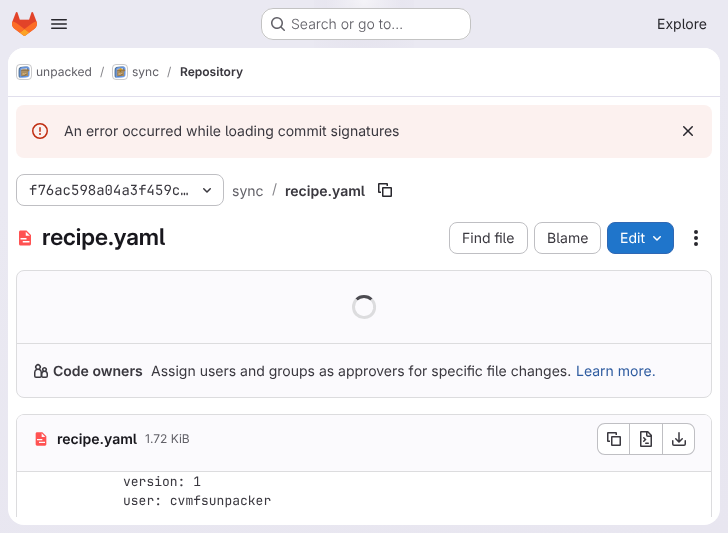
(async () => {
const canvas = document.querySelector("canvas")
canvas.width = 728
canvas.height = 533
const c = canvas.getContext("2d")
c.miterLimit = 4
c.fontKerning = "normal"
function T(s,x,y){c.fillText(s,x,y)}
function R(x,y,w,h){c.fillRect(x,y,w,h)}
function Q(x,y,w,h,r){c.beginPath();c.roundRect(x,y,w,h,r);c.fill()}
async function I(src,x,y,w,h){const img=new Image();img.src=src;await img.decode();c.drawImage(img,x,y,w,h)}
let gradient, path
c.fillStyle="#fff"
R(0,0,728,533)
gradient = c.createLinearGradient(421,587,307,-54)
gradient.addColorStop(0,"#e8e6f0")
gradient.addColorStop(.7,"#eae9f2")
c.fillStyle = gradient
R(0,0,728,533)
gradient = c.createRadialGradient(364,0,0,364,0,364)
gradient.addColorStop(0,"#e4e2ed")
gradient.addColorStop(.19,"#e4e2ed00")
c.fillStyle = gradient
c.beginPath()
c.rect(314,0,100,48)
c.save()
c.clip()
c.scale(1,533 / 364)
c.fillRect(0,0,728,364)
c.restore()
gradient = c.createRadialGradient(364,0,0,364,0,364)
gradient.addColorStop(0,"#e4e2ec")
gradient.addColorStop(.14,"#e4e2ec00")
c.fillStyle = gradient
c.beginPath()
c.rect(349,3,30,18)
c.save()
c.clip()
c.scale(1,533 / 364)
c.fillRect(0,0,728,364)
c.restore()
gradient = c.createRadialGradient(364,0,0,364,0,645)
gradient.addColorStop(0,"#ffffff99")
gradient.addColorStop(.06,"#ffffff00")
c.fillStyle = gradient
R(327,0,74,8)
await I("1.png",12,12,25,24)
await I("2.png",51,19,16,10)
c.fillStyle="#fff"
Q(261,8,210,32,12)
c.beginPath()
c.roundRect(261.5,8.5,209,31,11.5)
c.strokeStyle="#0505063d"
c.stroke()
await I("3.png",271,17,14,14)
c.font="300 14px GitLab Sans"
c.fillStyle="#626168"
T("Search or go to…",291,29)
c.font="14px GitLab Sans"
c.fillStyle="#28272d"
T("Explore",657,29)
c.fillStyle="#fff"
Q(8,48,712,477,16)
c.beginPath()
c.roundRect(8,48,712,49,[16,16,0,0])
c.fill()
c.fillStyle="#e1dfec"
R(8,96,712,1)
c.beginPath()
c.roundRect(16.5,64.5,15,15,3.5)
c.strokeStyle="#dcdcde"
c.stroke()
await I("4.png",18,66,12,13)
c.beginPath()
c.roundRect(16.5,64.5,15,15,3.5)
c.strokeStyle="#05050614"
c.stroke()
c.font="12px GitLab Sans"
c.fillStyle="#626168"
T("unpacked",36,76)
c.fillStyle="#89888d"
T("/",100,76)
c.beginPath()
c.roundRect(112.5,64.5,15,15,3.5)
c.strokeStyle="#dcdcde"
c.stroke()
await I("5.png",114,66,12,13)
c.beginPath()
c.roundRect(112.5,64.5,15,15,3.5)
c.strokeStyle="#05050614"
c.stroke()
c.fillStyle="#626168"
T("sync",132,76)
c.fillStyle="#89888d"
T("/",167,76)
c.font="600 12px GitLab Sans"
c.fillStyle="#3a383f"
T("Repository",180,76)
c.fillStyle="#fcf1ef"
Q(16,105,696,53,8)
await I("6.png",32,123,16,16)
c.font="14px GitLab Sans"
c.fillStyle="#3a383f"
T("An error occurred while loading commit signatures",64,136)
await I("7.png",683,126,10,10)
c.beginPath()
c.roundRect(16.5,174.5,207,31,7.5)
c.strokeStyle="#bfbfc3"
c.stroke()
c.font="14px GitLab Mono"
T("f76ac598a04a3f459c…",29,195)
await I("8.png",203,188,8,5)
c.font="14px GitLab Sans"
c.fillStyle="#626168"
T("sync",232,196)
c.fillStyle="#89888d"
T("/",272,194)
c.font="600 14px GitLab Sans"
c.fillStyle="#3a383f"
T("recipe.yaml",285,196)
await I("9.png",378,183,14,14)
await I("10.png",19,230,12,16)
c.font="600 23px 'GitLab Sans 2'"
c.fillStyle="#18171d"
T("recipe.yaml",42,245)
c.beginPath()
c.roundRect(449.5,222.5,78,31,7.5)
c.stroke()
c.font="14px GitLab Sans"
c.fillStyle="#3a383f"
T("Find file",462,243)
c.beginPath()
c.roundRect(534.5,222.5,66,31,7.5)
c.stroke()
T("Blame",547,243)
c.fillStyle="#1f75cb"
c.beginPath()
c.roundRect(607.5,222.5,66,31,7.5)
c.fill()
c.strokeStyle="#2f68b4"
c.stroke()
c.fillStyle="#fff"
T("Edit",620,243)
await I("11.png",653,236,8,5)
await I("12.png",694,230,4,16)
c.fillStyle="#fbfafd"
c.beginPath()
c.roundRect(16.5,270.5,695,127,7.5)
c.fill()
c.strokeStyle="#dcdcde"
c.stroke()
path = new Path2D("M356.5 299.5c4-4 11-4 15 0")
c.strokeStyle="#4c4b51"
c.lineWidth=3
c.stroke(path)
path = new Path2D("M371.5 299.5c2.5 2.5 3.5 6 3 9.5c-2.5 12.5-21 10.5-21-2c0-3 1-5.5 3-7.5")
c.strokeStyle="#dcdcde"
c.stroke(path)
c.fillStyle="#dcdcde"
R(17,343,694,1)
await I("13.png",34,363,14,15)
c.font="600 14px GitLab Sans"
c.fillStyle="#3a383f"
T("Code owners",53,376)
c.font="14px GitLab Sans"
T("Assign users and groups as approvers for specific file changes.",151,376)
c.fillStyle="#2f5ca0"
T("Learn more.",576,376)
c.save()
c.beginPath()
c.rect(8,97,712,420)
c.clip()
c.fillStyle="#dcdcde"
path = new Path2D("M24 414c-4 0-8 4-8 8v101h1v-101c0-4 3-7 7-7h680c4 0 7 3 7 7v101h1v-101c0-4-4-8-8-8z")
c.fill(path)
c.restore()
c.fillStyle="#fbfafd"
c.beginPath()
c.roundRect(17,415,694,57,[7,7,0,0])
c.fill()
c.fillStyle="#dcdcde"
R(17,471,694,1)
await I("14.png",35,432,12,14)
c.font="600 14px GitLab Sans"
c.fillStyle="#18171d"
T("recipe.yaml",57,444)
c.font="12px GitLab Sans"
c.fillStyle="#626168"
T("1.72 KiB",145,443)
c.fillStyle="#fff"
c.beginPath()
c.roundRect(598,424,31,30,[7,0,0,7])
c.fill()
c.fillStyle="#bfbfc3"
path = new Path2D("M605 423h24v32h-24c-4.5 0-8-3.5-8-8v-16c0-4.5 3.5-8 8-8zm0 1h24v30h-24c-4 0-7-3-7-7v-16c0-4 3-7 7-7z")
c.fill(path,"evenodd")
await I("15.png",607,432,14,14)
c.fillStyle="#fff"
R(630,424,32,30)
c.fillStyle="#bfbfc3"
R(630,423,32,1)
R(630,454,32,1)
R(629,423,1,32)
await I("16.png",640,431,12,16)
c.fillStyle="#fff"
c.beginPath()
c.roundRect(663,424,31,30,[0,7,7,0])
c.fill()
c.fillStyle="#bfbfc3"
path = new Path2D("M663 423h24c4.5 0 8 3.5 8 8v16c0 4.5-3.5 8-8 8h-24zm0 1h24c4 0 7 3 7 7v16c0 4-3 7-7 7h-24z")
c.fill(path,"evenodd")
R(662,423,1,32)
await I("17.png",672,432,14,14)
c.font="13px GitLab Mono"
c.fillStyle="#3a383f"
T("version: 1",123,486)
T("user: cvmfsunpacker",123,505)
})()
